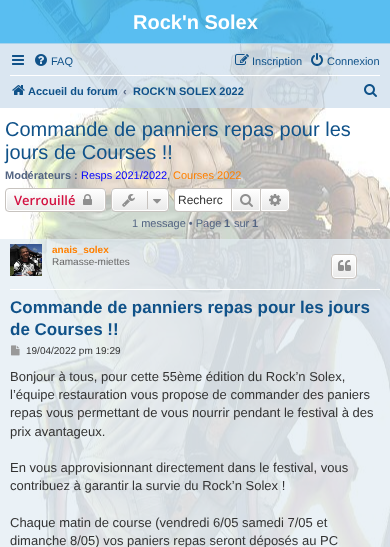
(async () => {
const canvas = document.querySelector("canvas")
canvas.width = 390
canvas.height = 547
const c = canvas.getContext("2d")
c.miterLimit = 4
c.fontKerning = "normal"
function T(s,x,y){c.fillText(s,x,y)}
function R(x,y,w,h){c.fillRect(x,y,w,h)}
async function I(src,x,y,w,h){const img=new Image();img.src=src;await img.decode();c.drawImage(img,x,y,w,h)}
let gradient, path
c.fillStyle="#fff"
R(0,0,390,547)
await I("1.png",22,0,368,547)
c.fillStyle="#12a3ebb3"
R(0,0,390,44)
c.font="bold 20px Liberation Sans"
c.fillStyle="#fff"
T("Rock'n Solex",133,29)
c.fillStyle="#cadcebb3"
R(0,43,390,65)
await I("2.png",12,55,12,10)
await I("3.png",35,54,12,12)
c.font="11px Liberation Sans"
c.fillStyle="#105289"
T("FAQ",51,65)
await I("4.png",235,54,14,11)
T("Inscription",252,65)
await I("5.png",311,53,12,13)
T("Connexion",327,65)
c.fillStyle="#fff"
R(10,75,370,1)
await I("6.png",12,85,13,10)
c.font="bold 11px Liberation Sans"
c.fillStyle="#105289"
T("Accueil du forum",28,95)
c.fillStyle="#536482"
T("‹",123,95)
c.fillStyle="#105289"
T("ROCK'N SOLEX 2022",133,95)
await I("7.png",364,84,13,13)
c.font="20px Liberation Sans"
T("Commande de panniers repas pour les",5,136)
T("jours de Courses !!",5,159)
c.font="bold 11px Liberation Sans"
c.fillStyle="#536482"
T("Modérateurs :",5,179)
c.font="11px Liberation Sans"
c.fillStyle="#00f"
T("Resps 2021/2022",81,179)
c.fillStyle="#536482"
T(",",167,179)
c.fillStyle="#ff8000"
T("Courses 2022",173,179)
c.save()
c.beginPath()
c.roundRect(5,188,101,24,4)
c.clip()
gradient = c.createLinearGradient(56,189,56,211)
gradient.addColorStop(0,"#fff")
gradient.addColorStop(1,"#e9e9e9")
c.fillStyle = gradient
R(5,189,101,22)
c.restore()
c.beginPath()
c.roundRect(6.5,189.5,98,21,2.5)
c.strokeStyle="#fff"
c.stroke()
c.beginPath()
c.roundRect(5.5,188.5,100,23,3.5)
c.strokeStyle="#c7c3bf"
c.stroke()
c.font="600 13px Open Sans"
c.fillStyle="#d31141"
T("Verrouillé",14,205)
await I("8.png",83,194,9,11)
c.save()
c.beginPath()
c.roundRect(111,188,58,24,4)
c.clip()
gradient = c.createLinearGradient(140,189,140,211)
gradient.addColorStop(0,"#fff")
gradient.addColorStop(1,"#e9e9e9")
c.fillStyle = gradient
R(111,189,58,22)
c.restore()
c.beginPath()
c.roundRect(112.5,189.5,55,21,2.5)
c.strokeStyle="#fff"
c.stroke()
c.beginPath()
c.roundRect(111.5,188.5,57,23,3.5)
c.strokeStyle="#c7c3bf"
c.stroke()
await I("9.png",122,194,13,13)
c.fillStyle="#c7c3bf"
R(147,191,1,18)
await I("10.png",153,199,8,5)
c.fillStyle="#fff"
c.beginPath()
c.roundRect(175,189,56,22,[3,0,0,3])
c.fill()
c.fillStyle="#c7c3bf"
path = new Path2D("M178 188h53v24h-53c-2 0-4-2-4-4v-16c0-2 2-4 4-4zm0 1h53v22h-53c-2 0-3-1-3-3v-16c0-2 1-3 3-3z")
c.fill(path,"evenodd")
c.font="12px Liberation Sans"
c.fillStyle="#333"
T("Recherc",178,204)
gradient = c.createLinearGradient(246,189,246,211)
gradient.addColorStop(0,"#fff")
gradient.addColorStop(1,"#e9e9e9")
c.fillStyle = gradient
R(233,190,26,20)
c.strokeStyle="#fff"
c.strokeRect(232.5,189.5,27,21)
c.strokeStyle="#c7c3bf"
c.strokeRect(231.5,188.5,29,23)
await I("11.png",240,194,13,13)
gradient = c.createLinearGradient(275,189,275,211)
gradient.addColorStop(0,"#fff")
gradient.addColorStop(1,"#e9e9e9")
c.fillStyle = gradient
c.beginPath()
c.roundRect(261.5,189.5,27,21,[0,2.5,2.5,0])
c.fill()
c.strokeStyle="#fff"
c.stroke()
c.fillStyle="#c7c3bf"
path = new Path2D("M261 188h25c2 0 4 2 4 4v16c0 2-2 4-4 4h-25zm0 1h25c1.5 0 3 1.5 3 3v16c0 1.5-1.5 3-3 3h-25z")
c.fill(path,"evenodd")
await I("12.png",269,194,12,12)
c.font="11px Liberation Sans"
c.fillStyle="#536482"
T("1 message • Page",132,227)
c.font="bold 11px Liberation Sans"
T("1",224,227)
c.font="11px Liberation Sans"
T("sur",234,227)
c.font="bold 11px Liberation Sans"
T("1",252,227)
c.fillStyle="#e1ebf2b3"
R(0,239,390,308)
c.fillStyle="#fff"
R(10,289,370,1)
await I("13.png",10,244,32,32)
c.font="bold 10px Liberation Sans"
c.fillStyle="#ff8000"
T("anais_solex",52,253)
c.font="10px Liberation Sans"
c.fillStyle="#666"
T("Ramasse-miettes",52,265)
c.save()
c.beginPath()
c.roundRect(331,254,26,25,4)
c.clip()
gradient = c.createLinearGradient(344,255,344,278)
gradient.addColorStop(0,"#fff")
gradient.addColorStop(1,"#e9e9e9")
c.fillStyle = gradient
R(331,255,26,23)
c.restore()
c.beginPath()
c.roundRect(332.5,255.5,23,22,2.5)
c.stroke()
c.beginPath()
c.roundRect(331.5,254.5,25,24,3.5)
c.strokeStyle="#c7c3bf"
c.stroke()
await I("14.png",338,260,13,11)
c.font="bold 17px Liberation Sans"
c.fillStyle="#105289"
T("Commande de panniers repas pour les jours",10,313)
T("de Courses !!",10,335)
await I("15.png",11,345,9,11)
c.font="10px Liberation Sans"
c.fillStyle="#333"
T("19/04/2022 pm 19:29",26,354)
c.font="13px Liberation Sans"
T("Bonjour à tous, pour cette 55ème édition du Rock’n Solex,",10,381)
T("l’équipe restauration vous propose de commander des paniers",10,399)
T("repas vous permettant de vous nourrir pendant le festival à des",10,417)
T("prix avantageux.",10,436)
T("En vous approvisionnant directement dans le festival, vous",10,472)
T("contribuez à garantir la survie du Rock’n Solex !",10,490)
T("Chaque matin de course (vendredi 6/05 samedi 7/05 et",10,527)
T("dimanche 8/05) vos paniers repas seront déposés au PC",10,545)
})()
